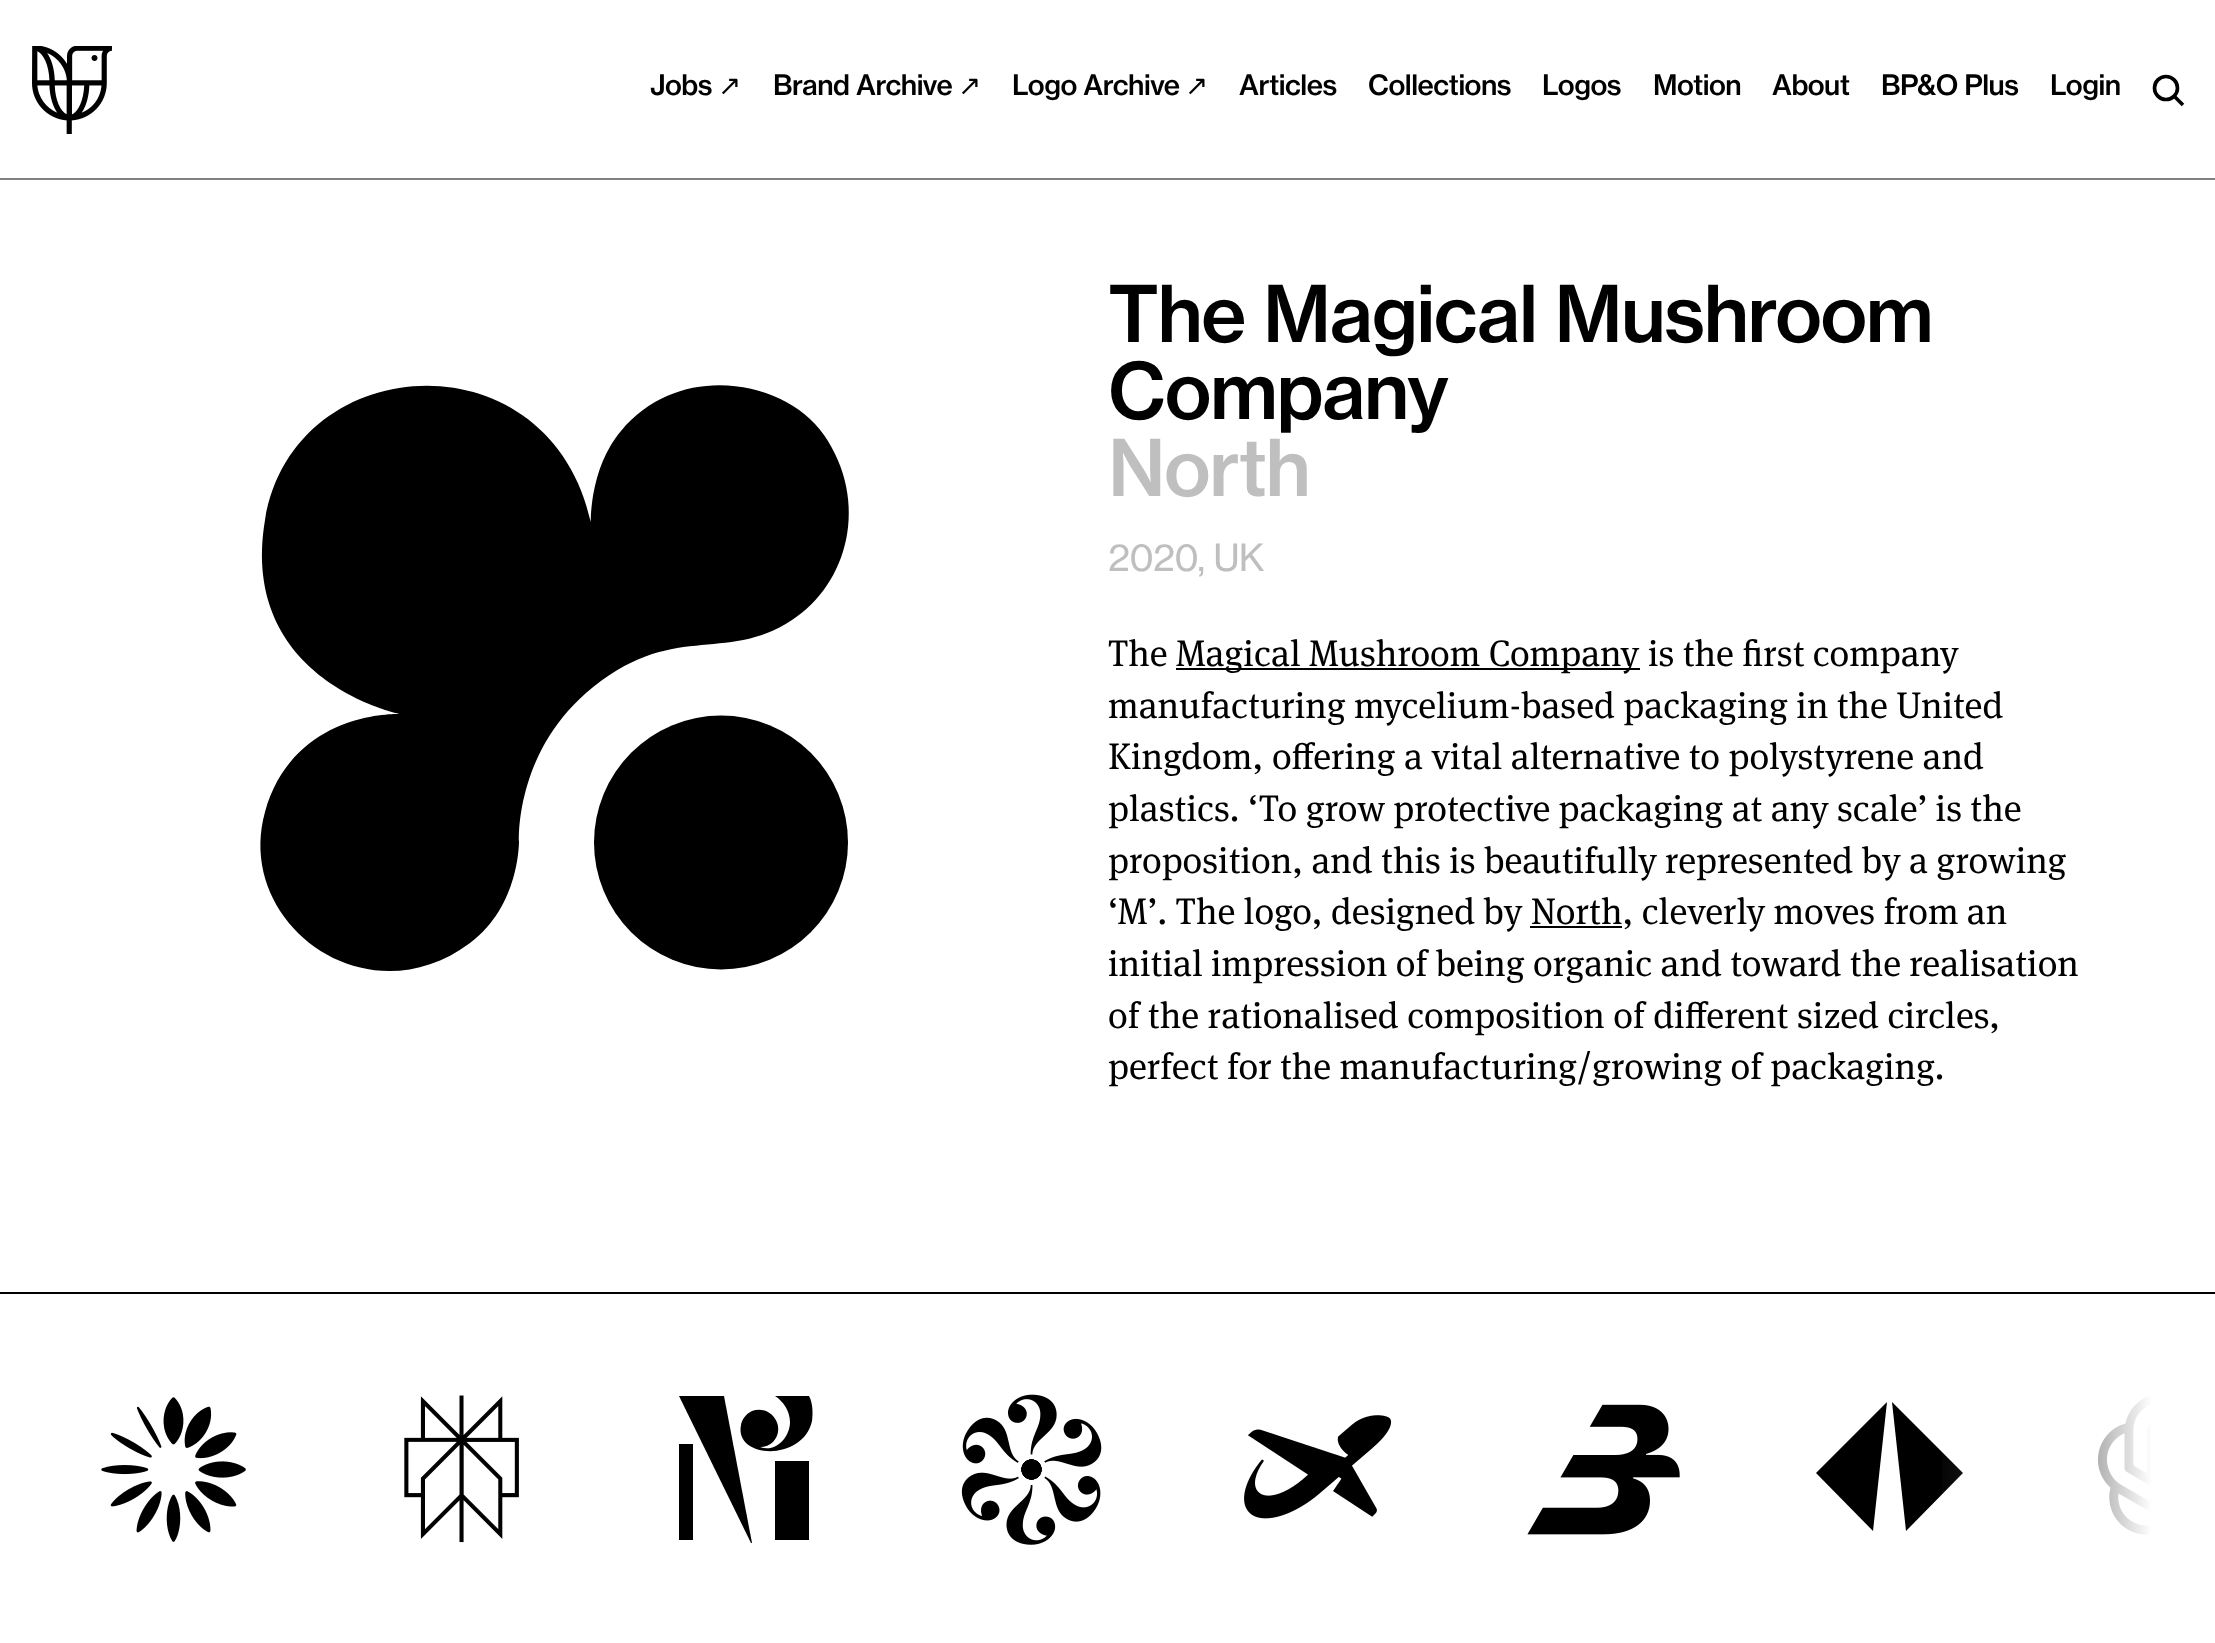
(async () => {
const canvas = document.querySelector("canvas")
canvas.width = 2215
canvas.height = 1643
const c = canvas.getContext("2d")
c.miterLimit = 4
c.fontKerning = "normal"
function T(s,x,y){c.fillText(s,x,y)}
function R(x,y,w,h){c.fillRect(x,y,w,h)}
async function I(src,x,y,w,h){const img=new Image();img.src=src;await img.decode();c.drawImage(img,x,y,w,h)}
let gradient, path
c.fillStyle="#fff"
R(0,0,2215,1643)
c.fillStyle="#808080"
R(0,178,2215,2)
await I("1.png",32,46,80,88)
c.letterSpacing="-0.5px"
c.font="500 27.75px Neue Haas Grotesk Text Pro"
c.fillStyle="#000"
T("Jobs",650,95)
c.font="27.75px DejaVu Sans"
T("↗",718,95)
c.font="500 27.75px Neue Haas Grotesk Text Pro"
T("Brand Archive",773,95)
c.font="27.75px DejaVu Sans"
T("↗",958,95)
c.font="500 27.75px Neue Haas Grotesk Text Pro"
T("Logo Archive",1012,95)
c.font="27.75px DejaVu Sans"
T("↗",1185,95)
c.font="500 27.75px Neue Haas Grotesk Text Pro"
T("Articles",1239,95)
T("Collections",1368,95)
T("Logos",1542,95)
T("Motion",1653,95)
T("About",1772,95)
T("BP&O Plus",1881,95)
T("Login",2050,95)
c.beginPath()
c.arc(2166,88,11.5,0,7)
c.strokeStyle="#000"
c.lineWidth=3.6
c.stroke()
path = new Path2D("M2174 96l9 9")
c.stroke(path)
path = new Path2D("M824 435c-38-55-144-75-203-4c-33 39-30 96-30 92c-41-190-298-175-326-3c-27 161 135 194 135 194c0 0-106-5-135 98c-31 111 101 209 205 131c50-37 49-102 49-102c0 0-4-86 67-148c86-74 138-28 206-73c56-36 78-118 32-185z")
c.fill(path)
c.beginPath()
c.arc(721,842.5,127,0,7)
c.fill()
c.letterSpacing="-1.5px"
c.font="500 77px Neue Haas Grotesk Text Pro"
T("The Magical Mushroom",1108,342)
T("Company",1108,419)
c.fillStyle="#bfbfbf"
T("North",1108,496)
c.letterSpacing="-0.75px"
c.font="36.9px Neue Haas Grotesk Text Pro"
T("2020, UK",1108,571)
c.letterSpacing="0px"
c.font="36.9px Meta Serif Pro"
c.fillStyle="#000"
T("The",1108,666)
R(1176,668,464,2)
T("Magical Mushroom Company",1176,666)
T("is the first company",1648,666)
T("manufacturing mycelium-based packaging in the United",1108,718)
c.wordSpacing="0.25px"
T("Kingdom, offering a vital alternative to polystyrene and",1108,769)
c.wordSpacing="0px"
T("plastics. ‘To grow protective packaging at any scale’ is the",1108,821)
T("proposition, and this is beautifully represented by a growing",1108,873)
T("‘M’. The logo, designed by North, cleverly moves from an",1108,924)
R(1530,926,92,2)
T("initial impression of being organic and toward the realisation",1108,976)
c.wordSpacing="0.25px"
T("of the rationalised composition of different sized circles,",1108,1028)
c.wordSpacing="0px"
T("perfect for the manufacturing/growing of packaging.",1108,1079)
R(0,1292,2215,2)
await I("2.png",101,1397,145,145)
await I("3.png",404,1395,115,148)
path = new Path2D("M790 1422c0-11-7-21-15-26h34c4 7 4 18 3 25c-9 41-78 38-71 4c1-6 5-11 11-14c19-7 35 16 21 31c-3 3-8 5-13 5c16 6 30-10 30-25z")
c.fill(path,"evenodd")
path = new Path2D("M679 1396h45l28 147h-1z")
c.fill(path,"evenodd")
R(679,1444,14,96)
R(775,1461,34,79)
await I("4.png",961,1394,141,151)
await I("5.png",1244,1415,148,104)
await I("6.png",1527,1404,153,131)
path = new Path2D("M1887 1402l-71 71l57 58z")
c.fill(path)
path = new Path2D("M1892 1402l71 71l-57 58z")
c.fill(path)
await I("7.png",2097,1395,54,140)
gradient = c.createLinearGradient(2152,1469,1930,1469)
gradient.addColorStop(0,"#fff")
gradient.addColorStop(.4,"#ffffff80")
gradient.addColorStop(.6,"#ffffff4d")
gradient.addColorStop(.8,"#ffffff1a")
gradient.addColorStop(.9,"#ffffff0a")
gradient.addColorStop(1,"#ffffff00")
c.fillStyle = gradient
R(1942,1395,209,140)
})()
